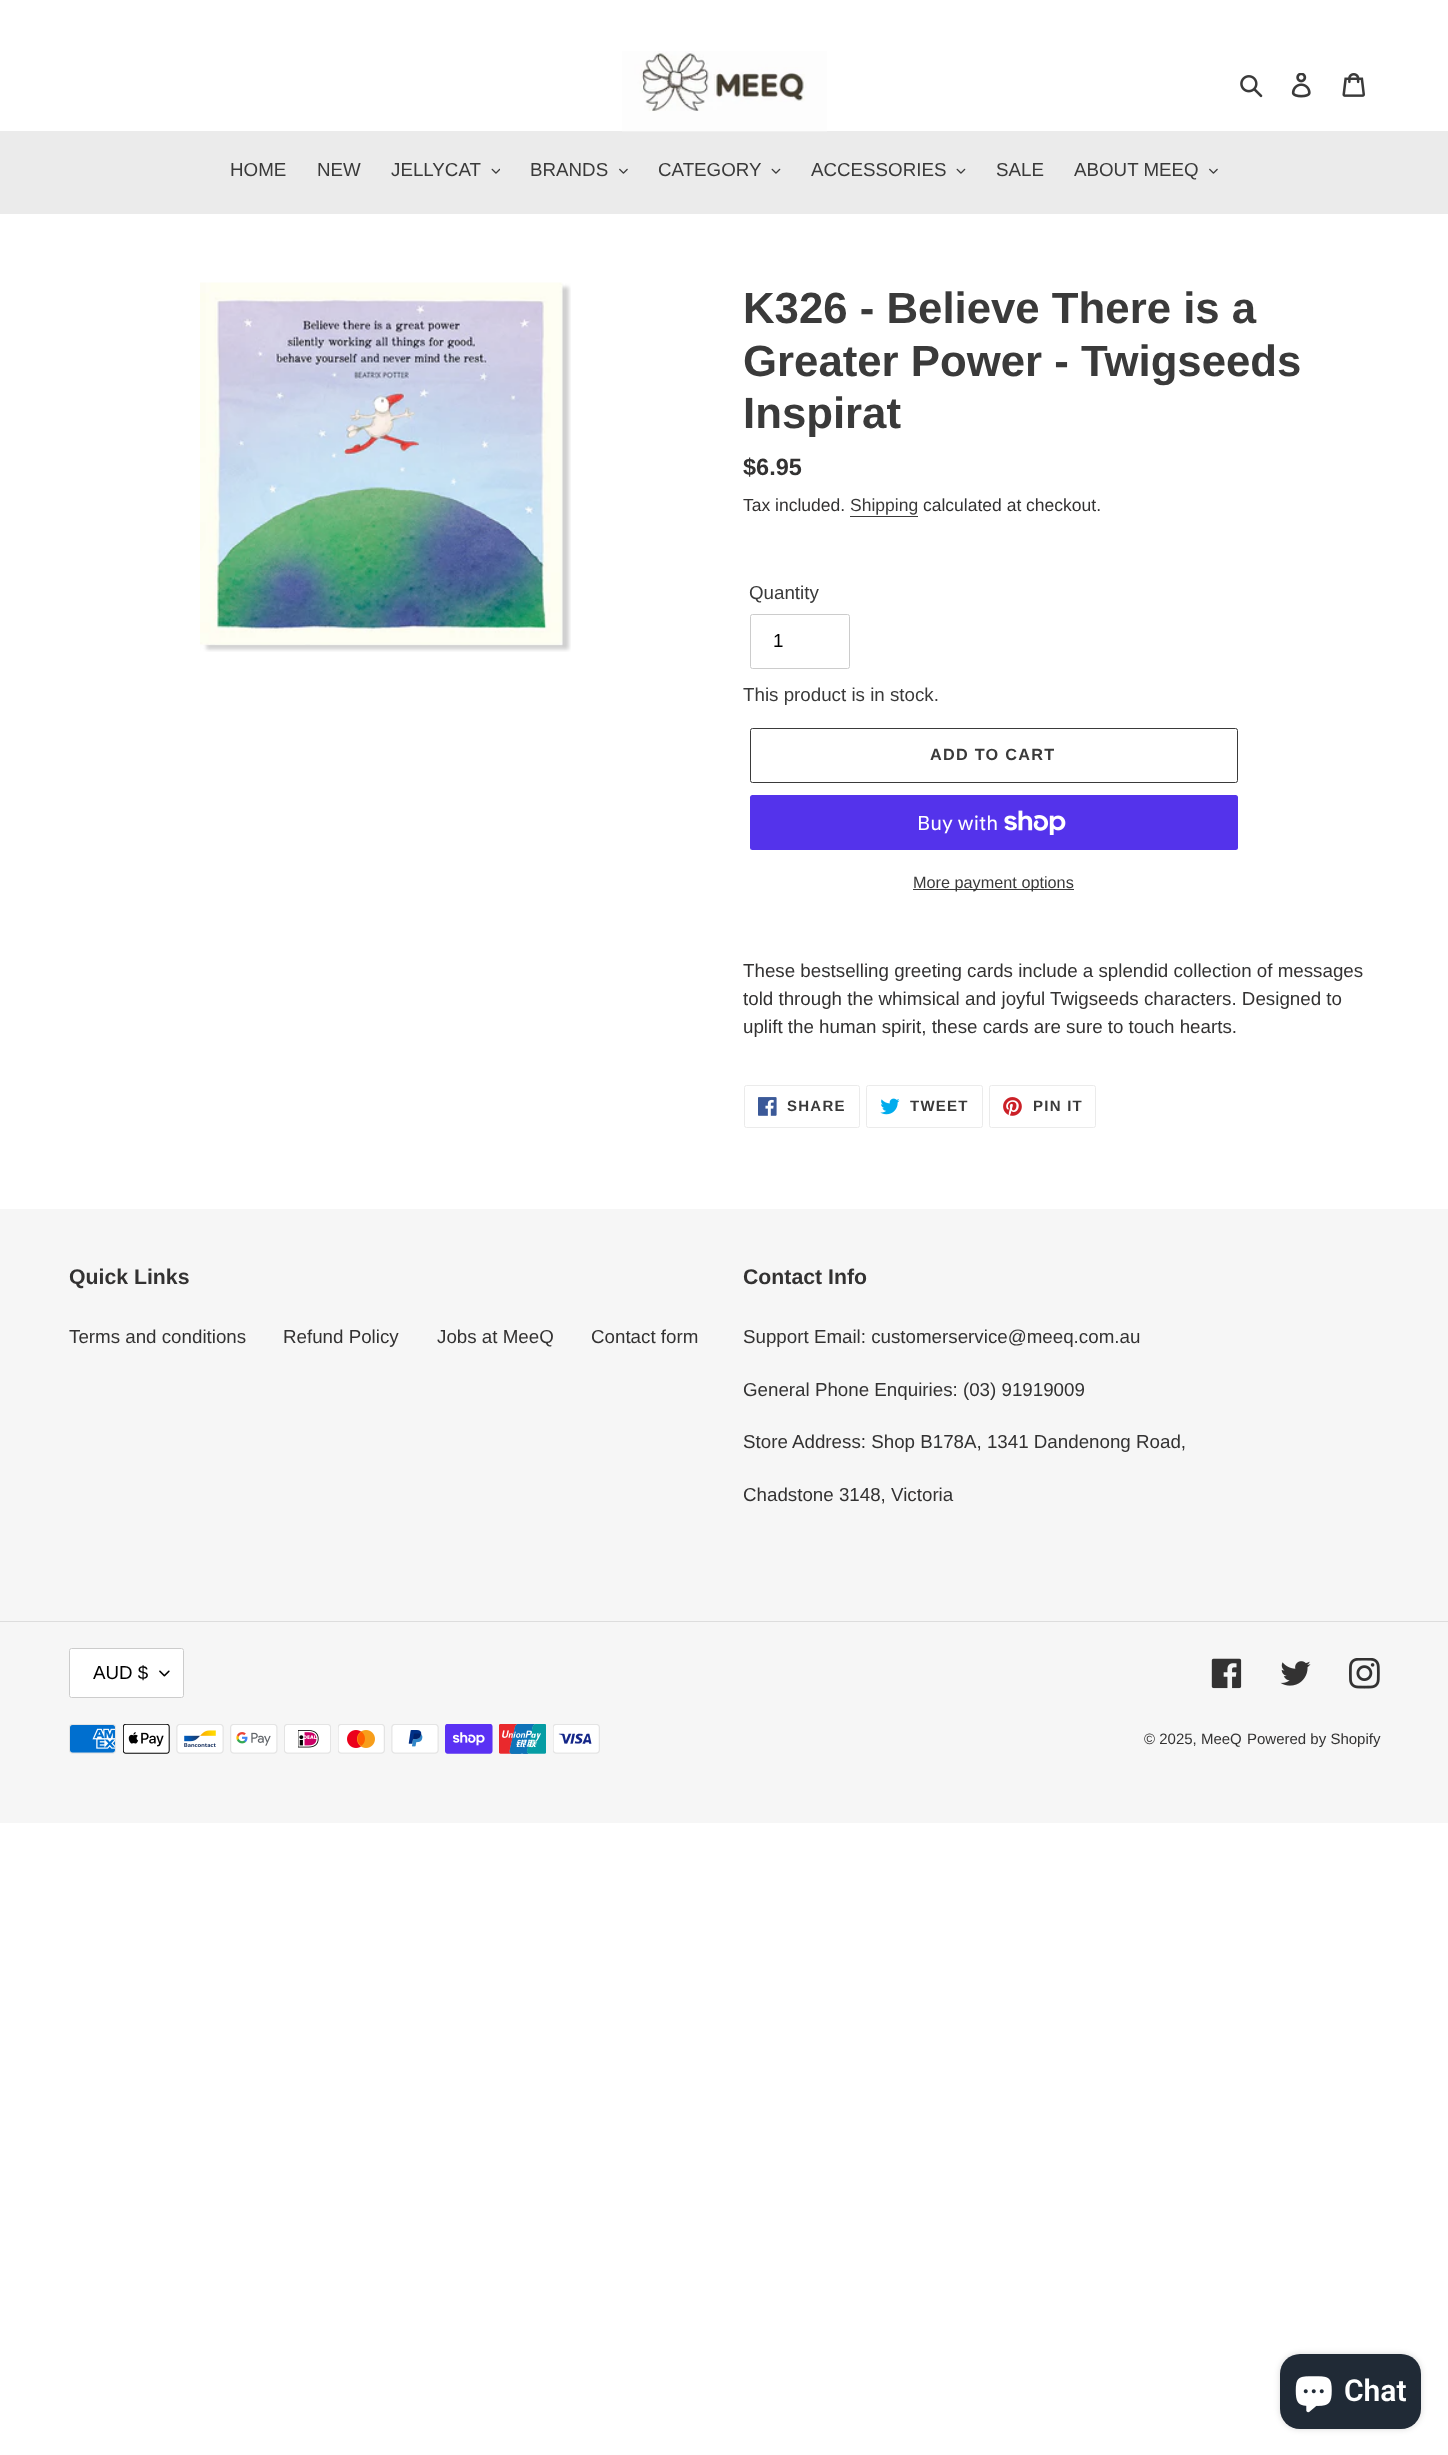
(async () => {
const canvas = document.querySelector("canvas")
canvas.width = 1448
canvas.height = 2455
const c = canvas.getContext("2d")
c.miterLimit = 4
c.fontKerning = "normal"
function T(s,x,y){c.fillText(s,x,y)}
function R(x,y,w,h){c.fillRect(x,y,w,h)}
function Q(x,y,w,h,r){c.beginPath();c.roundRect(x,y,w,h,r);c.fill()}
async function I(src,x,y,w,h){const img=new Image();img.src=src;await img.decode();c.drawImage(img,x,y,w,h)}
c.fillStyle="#fff"
R(0,0,1448,2455)
c.fillStyle="#ebebeb"
R(0,131,1448,83)
await I("1.png",622,51,205,81)
await I("2.png",1240,75,23,23)
await I("3.png",1291,73,20,25)
await I("4.png",1342,73,23,24)
c.font="18.75px Liberation Sans"
c.fillStyle="#3a3a3a"
T("HOME",230,176)
T("NEW",317,176)
T("JELLYCAT",391,176)
await I("5.png",491,168,9,6)
T("BRANDS",530,176)
await I("6.png",619,168,9,6)
T("CATEGORY",658,176)
await I("7.png",771,168,10,6)
T("ACCESSORIES",811,176)
await I("7.png",956,168,10,6)
T("SALE",996,176)
T("ABOUT MEEQ",1074,176)
await I("6.png",1209,168,9,6)
await I("8.png",200,282,371,370)
c.font="bold 43.75px Liberation Sans"
T("K326 - Believe There is a",743,323)
T("Greater Power - Twigseeds",743,376)
T("Inspirat",743,428)
c.font="bold 23.5px Liberation Sans"
c.fillStyle="#333232"
T("$6.95",743,475)
c.font="17.5px Liberation Sans"
T("Tax included.",743,511)
c.fillStyle="#3a3a3a"
T("Shipping",850,511)
R(850,516,68,1)
c.fillStyle="#333232"
T("calculated at checkout.",923,511)
c.font="18.75px Liberation Sans"
c.fillStyle="#3a3a3a"
T("Quantity",749,599)
c.beginPath()
c.roundRect(750.5,614.5,99,54,2)
c.strokeStyle="#ccc"
c.stroke()
c.fillStyle="#000"
T("1",773,647)
c.fillStyle="#3a3a3a"
T("This product is in stock.",743,701)
c.beginPath()
c.roundRect(750.5,728.5,487,54,2)
c.strokeStyle="#3a3a3a"
c.stroke()
c.letterSpacing="1.25px"
c.font="bold 16.25px Liberation Sans"
T("ADD TO CART",930,760)
c.fillStyle="#5433eb"
Q(750,795,488,55,2.5)
c.letterSpacing="0px"
c.font="20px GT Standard"
c.fillStyle="#fff"
T("Buy with",917,830)
await I("9.png",1004,810,62,25)
c.fillStyle="#3a3a3a"
R(913,889,161,1)
c.font="16.25px Liberation Sans"
T("More payment options",913,888)
c.font="18.75px Liberation Sans"
c.fillStyle="#333232"
T("These bestselling greeting cards include a splendid collection of messages",743,977)
T("told through the whimsical and joyful Twigseeds characters. Designed to",743,1005)
T("uplift the human spirit, these cards are sure to touch hearts.",743,1033)
c.beginPath()
c.roundRect(744.5,1085.5,115,42,2)
c.strokeStyle="#ebebeb"
c.stroke()
await I("10.png",758,1097,19,19)
c.letterSpacing="1.25px"
c.font="bold 15px Liberation Sans"
c.fillStyle="#3a3a3a"
T("SHARE",787,1111)
c.beginPath()
c.roundRect(866.5,1085.5,116,42,2)
c.stroke()
await I("11.png",880,1098,20,17)
T("TWEET",910,1111)
c.beginPath()
c.roundRect(989.5,1085.5,106,42,2)
c.stroke()
await I("12.png",1003,1097,19,19)
T("PIN IT",1033,1111)
c.fillStyle="#f6f6f6"
R(0,1209,1448,614)
c.letterSpacing="0px"
c.font="bold 21.25px Liberation Sans"
c.fillStyle="#333232"
T("Quick Links",69,1284)
c.font="18.75px Liberation Sans"
T("Terms and conditions",69,1343)
T("Refund Policy",283,1343)
T("Jobs at MeeQ",437,1343)
T("Contact form",591,1343)
c.font="bold 21.25px Liberation Sans"
T("Contact Info",743,1284)
c.font="18.75px Liberation Sans"
T("Support Email: customerservice@meeq.com.au",743,1343)
T("General Phone Enquiries: (03) 91919009",743,1396)
T("Store Address: Shop B178A, 1341 Dandenong Road,",743,1448)
T("Chadstone 3148, Victoria",743,1501)
c.fillStyle="#ddd"
R(0,1621,1448,1)
c.fillStyle="#fff"
Q(69,1648,115,50,2.5)
await I("13.png",159,1670,11,7)
c.beginPath()
c.roundRect(69.5,1648.5,114,49,2)
c.strokeStyle="#ccc"
c.stroke()
c.fillStyle="#000"
T("AUD $",93,1679)
await I("14.png",1211,1658,31,31)
await I("15.png",1280,1661,31,25)
await I("16.png",1349,1658,31,31)
await I("17.png",69,1724,47,30)
await I("18.png",123,1724,47,30)
await I("19.png",176,1724,48,30)
await I("20.png",230,1724,48,30)
await I("21.png",284,1724,47,30)
await I("22.png",338,1724,47,30)
await I("23.png",391,1724,48,30)
await I("24.png",445,1724,48,30)
await I("25.png",499,1724,47,30)
await I("26.png",553,1724,47,30)
c.font="15px Liberation Sans"
c.fillStyle="#333232"
T("© 2025, MeeQ",1144,1744)
T("Powered by Shopify",1247,1744)
c.fillStyle="#00000026"
c.filter="blur(3px)"
c.beginPath()
c.roundRect(1280,2354,141,75,20)
c.fill()
c.filter="none"
c.fillStyle="#202a36"
Q(1280,2354,141,75,20)
await I("27.png",1295,2376,37,37)
c.font="600 30px Roboto"
c.fillStyle="#fff"
T("Chat",1344,2401)
})()
